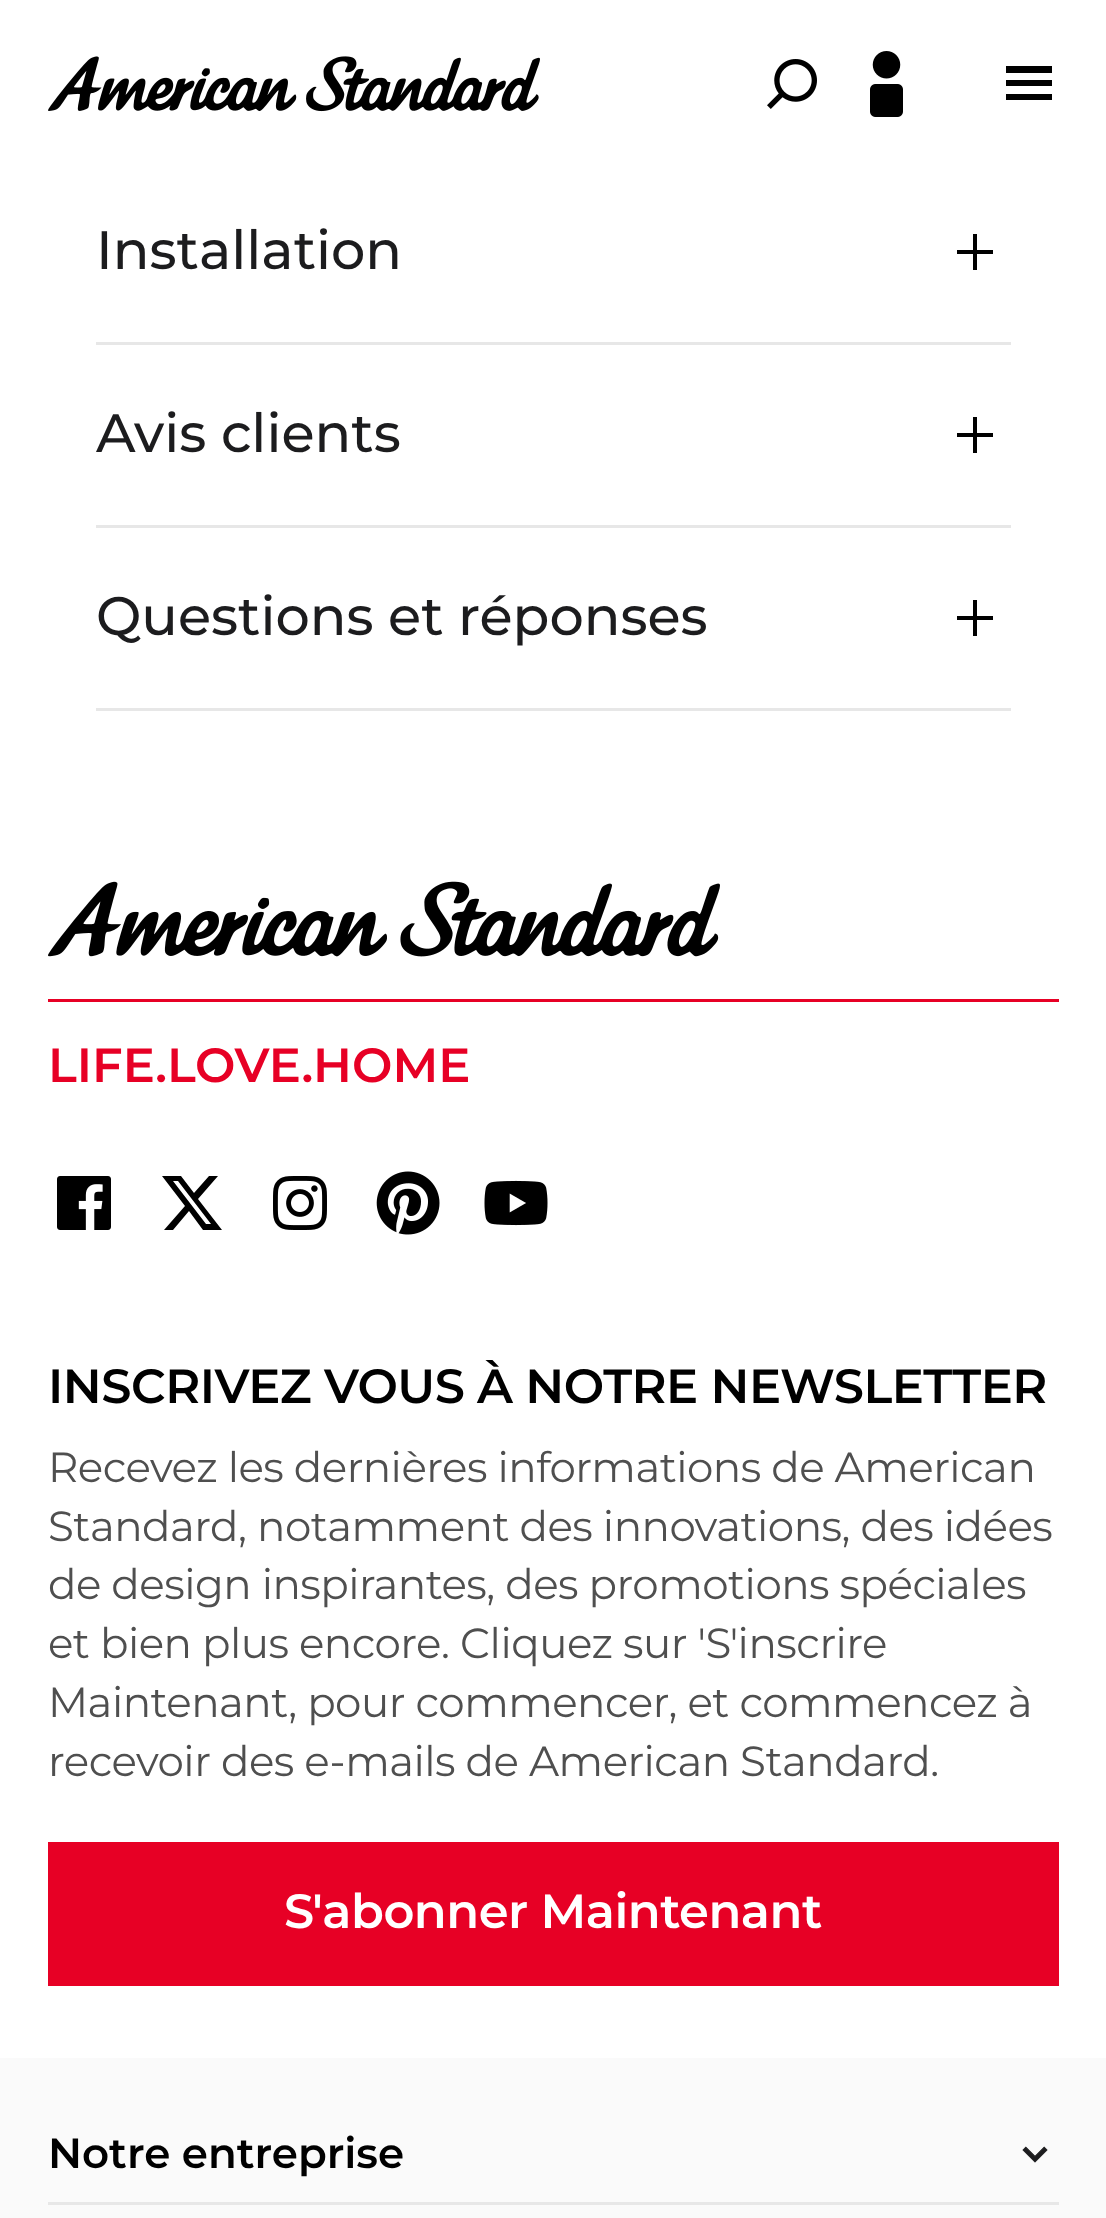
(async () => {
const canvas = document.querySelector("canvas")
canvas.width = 1106
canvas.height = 2218
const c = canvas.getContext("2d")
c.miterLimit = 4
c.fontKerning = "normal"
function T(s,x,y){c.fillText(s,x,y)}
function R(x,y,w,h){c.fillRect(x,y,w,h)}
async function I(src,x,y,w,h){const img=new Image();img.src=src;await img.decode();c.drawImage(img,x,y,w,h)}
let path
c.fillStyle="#fff"
R(0,0,1106,2218)
await I("1.png",48,56,492,56)
await I("2.png",767,59,50,50)
await I("3.png",870,51,33,66)
c.fillStyle="#000"
path = new Path2D("M1006 94h46v6h-46zm0-28h46v7h-46zm0 14h46v6h-46z")
c.fill(path)
c.fillStyle="#e7e7e7"
R(96,342,915,3)
c.font="500 54px Montserrat"
c.fillStyle="#1c1c1e"
T("Installation",96,269)
c.fillStyle="#000"
path = new Path2D("M977 250v-16h-4v16h-16v4h16v16h4v-16h16v-4z")
c.fill(path)
c.fillStyle="#e7e7e7"
R(96,525,915,3)
c.fillStyle="#1c1c1e"
T("Avis clients",96,452)
c.fillStyle="#000"
path = new Path2D("M977 433v-16h-4v16h-16v4h16v16h4v-16h16v-4z")
c.fill(path)
c.fillStyle="#e7e7e7"
R(96,708,915,3)
c.fillStyle="#1c1c1e"
T("Questions et réponses",96,635)
c.fillStyle="#000"
path = new Path2D("M977 616v-16h-4v16h-16v4h16v16h4v-16h16v-4z")
c.fill(path)
c.fillStyle="#e70025"
R(48,999,1011,3)
await I("4.png",48,881,672,76)
c.font="600 48px Montserrat"
T("LIFE.LOVE.HOME",48,1082)
await I("5.png",57,1176,54,54)
c.fillStyle="#000"
path = new Path2D("M209 1176h9l-20 23l24 31h-19l-14-19l-16 19h-9l21-24l-23-30h19l13 17zm-3 48h5l-33-43h-5z")
c.fill(path)
await I("6.png",273,1176,54,54)
await I("7.png",376,1171,64,64)
await I("8.png",484,1180,64,46)
c.letterSpacing="-0.5px"
T("INSCRIVEZ VOUS À NOTRE NEWSLETTER",48,1403)
c.font="42px Montserrat"
c.fillStyle="#4f4f4f"
T("Recevez les dernières informations de American",48,1482)
T("Standard, notamment des innovations, des idées",48,1541)
T("de design inspirantes, des promotions spéciales",48,1599)
T("et bien plus encore. Cliquez sur 'S'inscrire",48,1658)
T("Maintenant, pour commencer, et commencez à",48,1717)
T("recevoir des e-mails de American Standard.",48,1776)
c.fillStyle="#e70025"
R(48,1842,1011,144)
c.font="600 48px Montserrat"
c.fillStyle="#fff"
T("S'abonner Maintenant",284,1928)
c.fillStyle="#fafafa"
R(0,2058,1106,160)
c.fillStyle="#e7e7e7"
R(48,2202,1011,3)
c.letterSpacing="0px"
c.font="600 42px Montserrat"
c.fillStyle="#000"
T("Notre entreprise",48,2168)
await I("9.png",1022,2146,26,17)
})()
